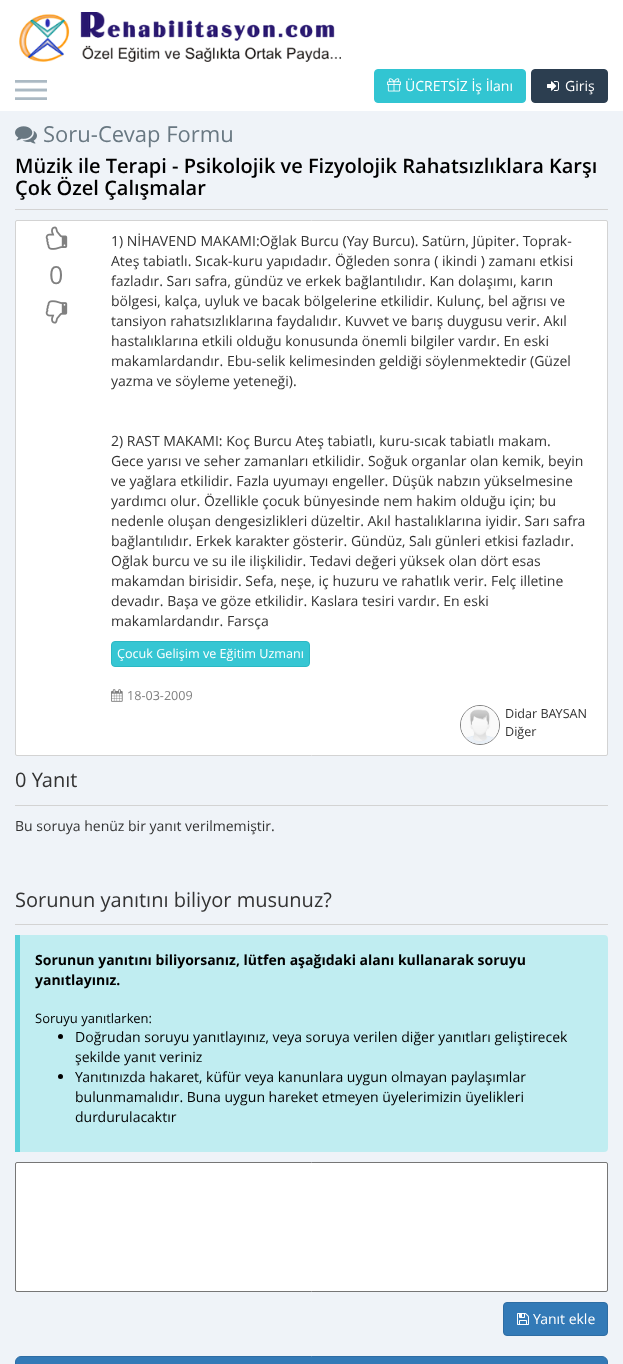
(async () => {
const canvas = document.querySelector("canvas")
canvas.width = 623
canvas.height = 1364
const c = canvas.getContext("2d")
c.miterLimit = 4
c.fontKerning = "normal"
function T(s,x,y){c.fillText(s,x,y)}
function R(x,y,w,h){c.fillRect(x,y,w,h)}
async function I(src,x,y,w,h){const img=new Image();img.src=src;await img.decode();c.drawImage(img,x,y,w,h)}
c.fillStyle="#fff"
R(0,0,623,1364)
await I("1.png",19,12,322,50)
await I("2.png",15,80,32,20)
c.fillStyle="#32c5d2"
c.beginPath()
c.roundRect(374.5,69.5,151,33,3.5)
c.fill()
c.strokeStyle="#32c5d2"
c.stroke()
await I("3.png",387,78,14,14)
c.font="14px Open Sans"
c.fillStyle="#fff"
T("ÜCRETSİZ İş İlanı",405,91)
c.fillStyle="#2c3e50"
c.beginPath()
c.roundRect(531.5,69.5,76,33,3.5)
c.fill()
c.strokeStyle="#2c3e50"
c.stroke()
await I("4.png",547,81,12,10)
c.fillStyle="#fff"
T("Giriş",565,91)
c.fillStyle="#eff3f8"
R(0,111,623,1253)
await I("5.png",15,126,22,18)
c.font="22px Open Sans"
c.fillStyle="#697882"
T("Soru-Cevap Formu",43,142)
c.fillStyle="#d3d3d3"
R(15,209,593,1)
c.font="600 20px Open Sans"
c.fillStyle="#000"
T("Müzik ile Terapi - Psikolojik ve Fizyolojik Rahatsızlıklara Karşı",15,173)
T("Çok Özel Çalışmalar",15,195)
c.fillStyle="#fff"
c.beginPath()
c.roundRect(15.5,220.5,592,535,1.5)
c.fill()
c.strokeStyle="#d3d3d3"
c.stroke()
await I("6.png",45,226,23,24)
c.font="25px Open Sans"
c.fillStyle="#808080"
T("0",49,284)
await I("7.png",45,300,23,24)
c.font="14px Open Sans"
c.fillStyle="#333"
T("1) NİHAVEND MAKAMI:Oğlak Burcu (Yay Burcu). Satürn, Jüpiter. Toprak-",111,246)
T("Ateş tabiatlı. Sıcak-kuru yapıdadır. Öğleden sonra ( ikindi ) zamanı etkisi",111,266)
T("fazladır. Sarı safra, gündüz ve erkek bağlantılıdır. Kan dolaşımı, karın",111,286)
T("bölgesi, kalça, uyluk ve bacak bölgelerine etkilidir. Kulunç, bel ağrısı ve",111,306)
T("tansiyon rahatsızlıklarına faydalıdır. Kuvvet ve barış duygusu verir. Akıl",111,326)
T("hastalıklarına etkili olduğu konusunda önemli bilgiler vardır. En eski",111,346)
T("makamlardandır. Ebu-selik kelimesinden geldiği söylenmektedir (Güzel",111,366)
T("yazma ve söyleme yeteneği).",111,386)
T("2) RAST MAKAMI: Koç Burcu Ateş tabiatlı, kuru-sıcak tabiatlı makam.",111,446)
T("Gece yarısı ve seher zamanları etkilidir. Soğuk organlar olan kemik, beyin",111,466)
T("ve yağlara etkilidir. Fazla uyumayı engeller. Düşük nabzın yükselmesine",111,486)
T("yardımcı olur. Özellikle çocuk bünyesinde nem hakim olduğu için; bu",111,506)
T("nedenle oluşan dengesizlikleri düzeltir. Akıl hastalıklarına iyidir. Sarı safra",111,526)
T("bağlantılıdır. Erkek karakter gösterir. Gündüz, Salı günleri etkisi fazladır.",111,546)
T("Oğlak burcu ve su ile ilişkilidir. Tedavi değeri yüksek olan dört esas",111,566)
T("makamdan birisidir. Sefa, neşe, iç huzuru ve rahatlık verir. Felç illetine",111,586)
T("devadır. Başa ve göze etkilidir. Kaslara tesiri vardır. En eski",111,606)
T("makamlardandır. Farsça",111,626)
c.fillStyle="#36c6d3"
c.beginPath()
c.roundRect(111.5,641.5,198,25,3.5)
c.fill()
c.strokeStyle="#2bb8c4"
c.stroke()
c.font="12.6px Open Sans"
c.fillStyle="#fff"
T("Çocuk Gelişim ve Eğitim Uzmanı",117,658)
await I("8.png",111,689,12,13)
c.fillStyle="#808080"
T("18-03-2009",127,700)
c.beginPath()
c.arc(480,725,19.5,0,7)
c.strokeStyle="#808080"
c.stroke()
await I("9.png",461,706,38,38)
c.fillStyle="#333"
T("Didar BAYSAN",505,718)
T("Diğer",505,736)
c.fillStyle="#d3d3d3"
R(15,805,593,1)
c.font="20px Open Sans"
c.fillStyle="#333"
T("0 Yanıt",15,787)
c.font="14px Open Sans"
T("Bu soruya henüz bir yanıt verilmemiştir.",15,831)
c.fillStyle="#d3d3d3"
R(15,924,593,1)
c.font="20px Open Sans"
c.fillStyle="#333"
T("Sorunun yanıtını biliyor musunuz?",15,907)
c.fillStyle="#c0edf1"
c.beginPath()
c.roundRect(15,935,593,217,[0,4,4,0])
c.fill()
c.fillStyle="#58d0da"
R(15,935,5,217)
c.font="bold 14px Open Sans"
c.fillStyle="#000"
T("Sorunun yanıtını biliyorsanız, lütfen aşağıdaki alanı kullanarak soruyu",35,965)
T("yanıtlayınız.",35,985)
c.font="13px Open Sans"
T("Soruyu yanıtlarken:",35,1023)
c.beginPath()
c.arc(60.5,1036.5,2.5,0,7)
c.fill()
c.font="14px Open Sans"
T("Doğrudan soruyu yanıtlayınız, veya soruya verilen diğer yanıtları geliştirecek",75,1042)
T("şekilde yanıt veriniz",75,1062)
c.beginPath()
c.arc(60.5,1076.5,2.5,0,7)
c.fill()
T("Yanıtınızda hakaret, küfür veya kanunlara uygun olmayan paylaşımlar",75,1082)
T("bulunmamalıdır. Buna uygun hareket etmeyen üyelerimizin üyelikleri",75,1102)
T("durdurulacaktır",75,1122)
c.fillStyle="#fff"
c.beginPath()
c.roundRect(15.5,1162.5,592,129,1.5)
c.fill()
c.strokeStyle="#767676"
c.stroke()
c.fillStyle="#337ab7"
c.beginPath()
c.roundRect(503.5,1302.5,104,33,3.5)
c.fill()
c.strokeStyle="#2e6da4"
c.stroke()
await I("10.png",517,1313,12,12)
c.fillStyle="#fff"
T("Yanıt ekle",533,1324)
c.fillStyle="#337ab7"
c.beginPath()
c.roundRect(15.5,1356.5,592,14,5.5)
c.fill()
c.stroke()
})()
